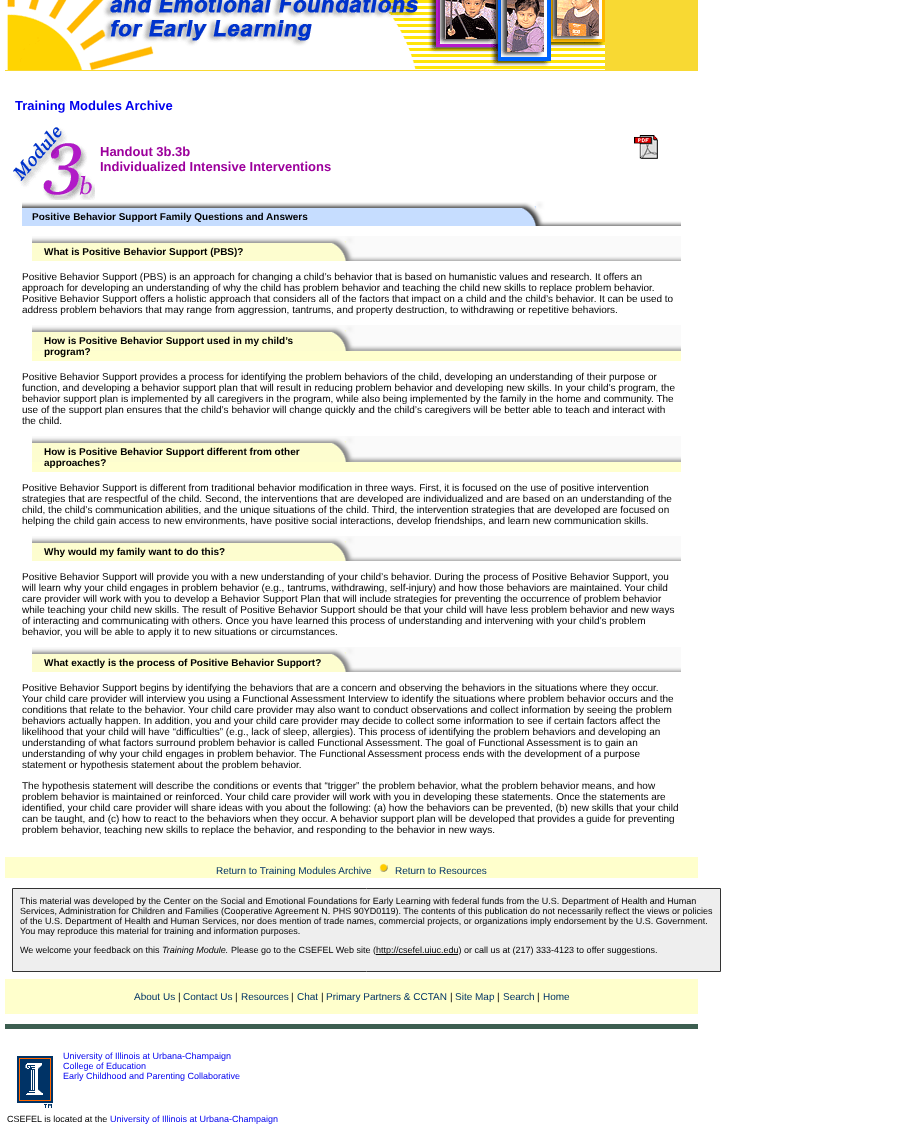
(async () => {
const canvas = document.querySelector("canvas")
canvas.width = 906
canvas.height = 1125
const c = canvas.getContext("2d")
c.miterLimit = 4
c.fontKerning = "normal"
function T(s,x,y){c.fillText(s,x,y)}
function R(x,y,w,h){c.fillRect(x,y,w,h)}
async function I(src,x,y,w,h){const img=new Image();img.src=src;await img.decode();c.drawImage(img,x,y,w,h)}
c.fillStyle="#fff"
R(0,0,906,1125)
c.fillStyle="#f8d933"
R(5,0,693,71)
await I("1.png",5,0,600,70)
c.font="bold 13px Liberation Sans"
c.fillStyle="#00e"
T("Training Modules Archive",15,110)
await I("2.png",13,127,82,73)
c.fillStyle="#9c009c"
T("Handout 3b.3b",100,156)
T("Individualized Intensive Interventions",100,171)
await I("3.png",634,135,24,24)
await I("4.png",22,201,659,25)
c.font="bold 10px Liberation Sans"
c.fillStyle="#000"
T("Positive Behavior Support Family Questions and Answers",32,220)
await I("5.png",32,236,649,25)
T("What is Positive Behavior Support (PBS)?",44,255)
c.font="10px Liberation Sans"
T("Positive Behavior Support (PBS) is an approach for changing a child’s behavior that is based on humanistic values and research. It offers an",22,280)
T("approach for developing an understanding of why the child has problem behavior and teaching the child new skills to replace problem behavior.",22,291)
T("Positive Behavior Support offers a holistic approach that considers all of the factors that impact on a child and the child’s behavior. It can be used to",22,302)
T("address problem behaviors that may range from aggression, tantrums, and property destruction, to withdrawing or repetitive behaviors.",22,313)
c.fillStyle="#ffffce"
R(32,351,649,10)
await I("6.png",32,325,649,26)
c.font="bold 10px Liberation Sans"
c.fillStyle="#000"
T("How is Positive Behavior Support used in my child’s",44,344)
T("program?",44,355)
c.font="10px Liberation Sans"
T("Positive Behavior Support provides a process for identifying the problem behaviors of the child, developing an understanding of their purpose or",22,380)
T("function, and developing a behavior support plan that will result in reducing problem behavior and developing new skills. In your child’s program, the",22,391)
T("behavior support plan is implemented by all caregivers in the program, while also being implemented by the family in the home and community. The",22,402)
T("use of the support plan ensures that the child’s behavior will change quickly and the child’s caregivers will be better able to teach and interact with",22,413)
T("the child.",22,424)
c.fillStyle="#ffffce"
R(32,462,649,10)
await I("6.png",32,436,649,26)
c.font="bold 10px Liberation Sans"
c.fillStyle="#000"
T("How is Positive Behavior Support different from other",44,455)
T("approaches?",44,466)
c.font="10px Liberation Sans"
T("Positive Behavior Support is different from traditional behavior modification in three ways. First, it is focused on the use of positive intervention",22,491)
T("strategies that are respectful of the child. Second, the interventions that are developed are individualized and are based on an understanding of the",22,502)
T("child, the child’s communication abilities, and the unique situations of the child. Third, the intervention strategies that are developed are focused on",22,513)
T("helping the child gain access to new environments, have positive social interactions, develop friendships, and learn new communication skills.",22,524)
await I("5.png",32,536,649,25)
c.font="bold 10px Liberation Sans"
T("Why would my family want to do this?",44,555)
c.font="10px Liberation Sans"
T("Positive Behavior Support will provide you with a new understanding of your child’s behavior. During the process of Positive Behavior Support, you",22,580)
T("will learn why your child engages in problem behavior (e.g., tantrums, withdrawing, self-injury) and how those behaviors are maintained. Your child",22,591)
T("care provider will work with you to develop a Behavior Support Plan that will include strategies for preventing the occurrence of problem behavior",22,602)
T("while teaching your child new skills. The result of Positive Behavior Support should be that your child will have less problem behavior and new ways",22,613)
T("of interacting and communicating with others. Once you have learned this process of understanding and intervening with your child’s problem",22,624)
T("behavior, you will be able to apply it to new situations or circumstances.",22,635)
await I("5.png",32,647,649,25)
c.font="bold 10px Liberation Sans"
T("What exactly is the process of Positive Behavior Support?",44,666)
c.font="10px Liberation Sans"
T("Positive Behavior Support begins by identifying the behaviors that are a concern and observing the behaviors in the situations where they occur.",22,691)
T("Your child care provider will interview you using a Functional Assessment Interview to identify the situations where problem behavior occurs and the",22,702)
T("conditions that relate to the behavior. Your child care provider may also want to conduct observations and collect information by seeing the problem",22,713)
T("behaviors actually happen. In addition, you and your child care provider may decide to collect some information to see if certain factors affect the",22,724)
T("likelihood that your child will have “difficulties” (e.g., lack of sleep, allergies). This process of identifying the problem behaviors and developing an",22,735)
T("understanding of what factors surround problem behavior is called Functional Assessment. The goal of Functional Assessment is to gain an",22,746)
T("understanding of why your child engages in problem behavior. The Functional Assessment process ends with the development of a purpose",22,757)
T("statement or hypothesis statement about the problem behavior.",22,768)
T("The hypothesis statement will describe the conditions or events that “trigger” the problem behavior, what the problem behavior means, and how",22,789)
T("problem behavior is maintained or reinforced. Your child care provider will work with you in developing these statements. Once the statements are",22,800)
T("identified, your child care provider will share ideas with you about the following: (a) how the behaviors can be prevented, (b) new skills that your child",22,811)
T("can be taught, and (c) how to react to the behaviors when they occur. A behavior support plan will be developed that provides a guide for preventing",22,822)
T("problem behavior, teaching new skills to replace the behavior, and responding to the behavior in new ways.",22,833)
c.fillStyle="#ffc"
R(5,857,693,21)
c.fillStyle="#036"
T("Return to Training Modules Archive",216,874)
await I("7.png",379,863,9,9)
T("Return to Resources",395,874)
c.fillStyle="#eee"
c.beginPath()
c.rect(12.5,888.5,708,83)
c.fill()
c.strokeStyle="#333"
c.stroke()
c.font="9px Liberation Sans"
c.fillStyle="#000"
T("This material was developed by the Center on the Social and Emotional Foundations for Early Learning with federal funds from the U.S. Department of Health and Human",20,904)
T("Services, Administration for Children and Families (Cooperative Agreement N. PHS 90YD0119). The contents of this publication do not necessarily reflect the views or policies",20,914)
T("of the U.S. Department of Health and Human Services, nor does mention of trade names, commercial projects, or organizations imply endorsement by the U.S. Government.",20,924)
T("You may reproduce this material for training and information purposes.",20,934)
T("We welcome your feedback on this",20,953)
c.font="italic 9px Liberation Sans"
T("Training Module.",162,953)
c.font="9px Liberation Sans"
T("Please go to the CSEFEL Web site (",231,953)
R(376,954,82,1)
T("http://csefel.uiuc.edu) or call us at (217) 333-4123 to offer suggestions.",376,953)
c.fillStyle="#ffc"
R(5,979,693,35)
c.font="10px Liberation Sans"
c.fillStyle="#036"
T("About Us",134,1000)
c.fillStyle="#000"
T("|",178,1000)
c.fillStyle="#036"
T("Contact Us",183,1000)
c.fillStyle="#000"
T("|",235,1000)
c.fillStyle="#036"
T("Resources",241,1000)
c.fillStyle="#000"
T("|",291,1000)
c.fillStyle="#036"
T("Chat",297,1000)
c.fillStyle="#000"
T("|",321,1000)
c.fillStyle="#036"
T("Primary Partners & CCTAN",326,1000)
c.fillStyle="#000"
T("|",450,1000)
c.fillStyle="#036"
T("Site Map",455,1000)
c.fillStyle="#000"
T("|",497,1000)
c.fillStyle="#036"
T("Search",503,1000)
c.fillStyle="#000"
T("|",537,1000)
c.fillStyle="#036"
T("Home",543,1000)
c.fillStyle="#3c5e50"
R(5,1024,693,5)
await I("8.png",17,1056,36,52)
c.font="9px Liberation Sans"
c.fillStyle="#00e"
T("University of Illinois at Urbana-Champaign",63,1059)
T("College of Education",63,1069)
T("Early Childhood and Parenting Collaborative",63,1079)
c.fillStyle="#000"
T("CSEFEL is located at the",7,1122)
c.fillStyle="#00e"
T("University of Illinois at Urbana-Champaign",110,1122)
})()
